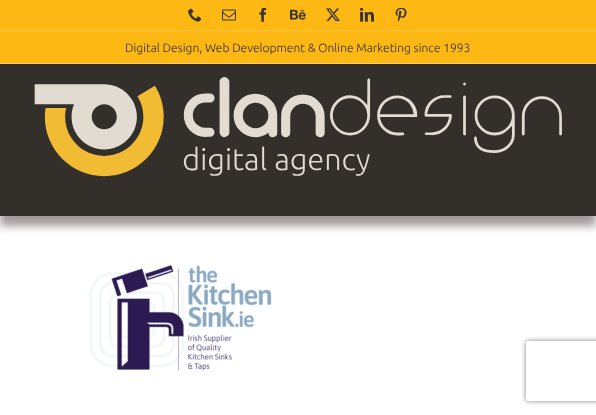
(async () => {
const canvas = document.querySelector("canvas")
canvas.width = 596
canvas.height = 415
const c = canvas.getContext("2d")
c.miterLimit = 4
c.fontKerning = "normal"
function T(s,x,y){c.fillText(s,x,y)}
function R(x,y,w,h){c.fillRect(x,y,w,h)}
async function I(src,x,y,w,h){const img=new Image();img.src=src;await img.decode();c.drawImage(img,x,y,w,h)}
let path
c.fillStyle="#fff"
R(0,0,596,415)
c.fillStyle="#fdb813"
R(0,0,596,63)
c.fillStyle="#f8d176"
R(0,63,596,1)
await I("1.png",188,8,14,14)
await I("2.png",222,9,14,12)
await I("3.png",259,8,8,14)
await I("4.png",290,9,16,11)
await I("5.png",326,8,14,14)
await I("6.png",360,8,14,14)
await I("7.png",395,8,12,14)
c.fillStyle="#fdc642"
R(0,30,596,1)
c.font="300 12px Ubuntu"
c.fillStyle="#322f2b"
T("Digital Design, Web Development & Online Marketing since 1993",125,52)
c.fillStyle="#16000066"
c.filter="blur(4px)"
c.beginPath()
c.rect(0,74,596,152)
c.fill()
c.filter="none"
c.fillStyle="#33302c"
R(0,64,596,152)
await I("8.png",34,77,528,100)
await I("9.png",89,265,183,106)
c.save()
path = new Path2D("M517 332h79v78h-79zm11 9h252c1 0 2 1 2 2v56c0 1-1 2-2 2h-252c-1 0-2-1-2-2v-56c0-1 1-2 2-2z")
c.clip(path,"evenodd")
c.fillStyle="#808080"
c.filter="blur(2.5px)"
c.beginPath()
c.roundRect(526,341,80,60,2)
c.fill()
c.filter="none"
c.restore()
})()
